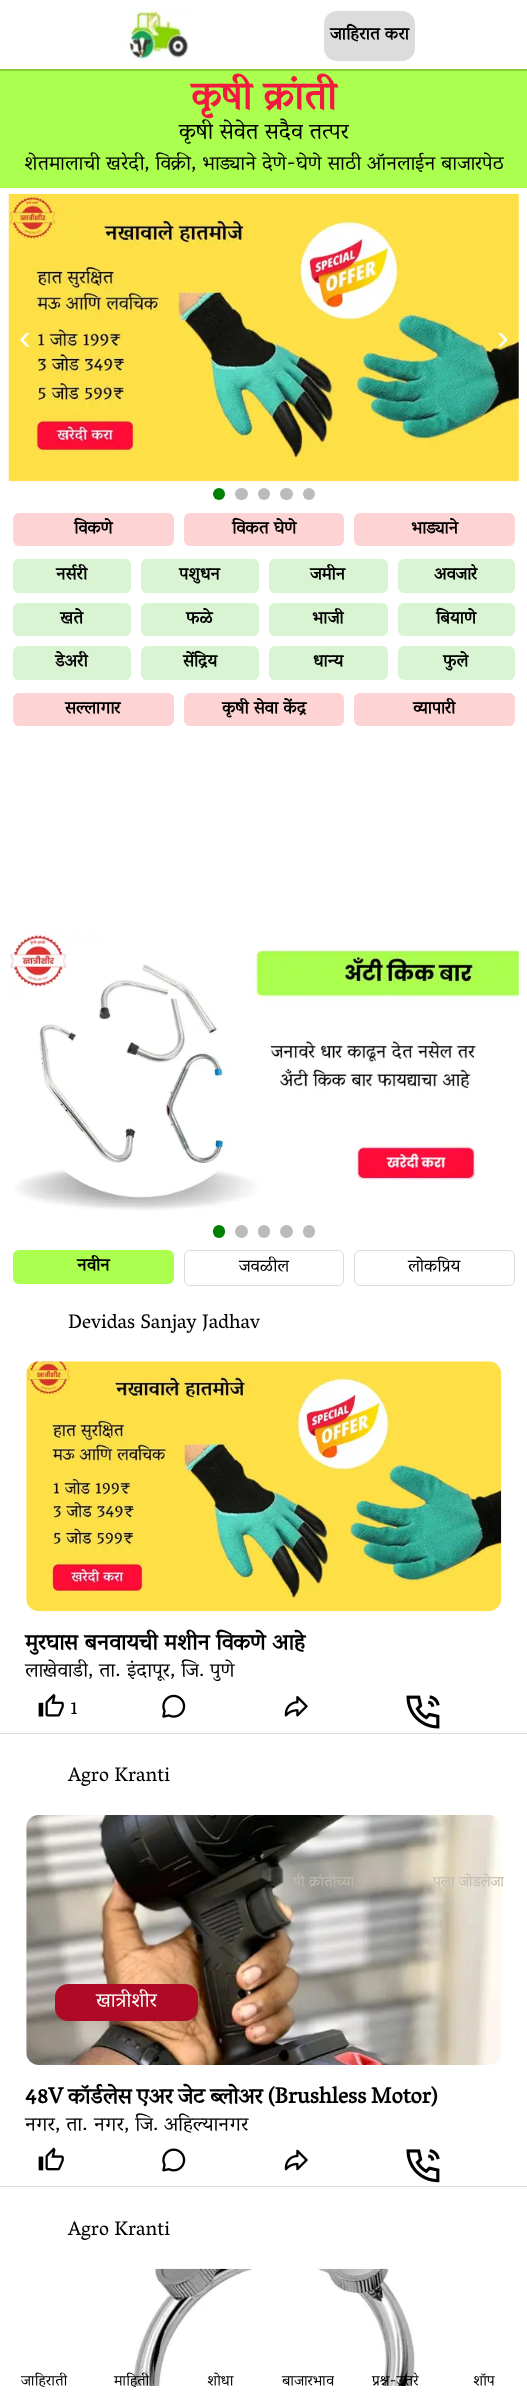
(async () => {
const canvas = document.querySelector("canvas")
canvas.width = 527
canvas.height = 2396
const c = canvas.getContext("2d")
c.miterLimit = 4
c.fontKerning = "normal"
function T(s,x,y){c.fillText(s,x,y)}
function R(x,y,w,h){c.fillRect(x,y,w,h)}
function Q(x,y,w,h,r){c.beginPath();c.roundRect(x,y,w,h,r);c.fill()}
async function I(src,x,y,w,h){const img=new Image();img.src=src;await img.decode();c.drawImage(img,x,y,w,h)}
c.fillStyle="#fff"
R(0,0,527,2396)
c.fillStyle="#abff4f"
R(0,69,527,119)
c.fillStyle="#00000030"
c.filter="blur(0.5px)"
c.beginPath()
c.rect(0,0,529,71)
c.fill()
c.filter="none"
c.fillStyle="#fff"
R(0,0,527,69)
await I("1.png",127,8,63,53)
c.fillStyle="#dcdcdc"
Q(324,11,91,50,13)
c.font="bold 17.5px Vesper Libre"
c.fillStyle="#000"
T("जाहिरात करा",330,39)
c.font="bold 40px Vesper Libre"
c.fillStyle="#f21b3f"
T("कृषी क्रांती",191,108)
c.font="22.5px Vesper Libre"
c.fillStyle="#000"
T("कृषी सेवेत सदैव तत्पर",179,138)
c.font="20px Vesper Libre"
T("शेतमालाची खरेदी, विक्री, भाड्याने देणे-घेणे साठी ऑनलाईन बाजारपेठ",24,169)
await I("2.png",8,193,511,289)
c.font="35px Liberation Sans"
c.fillStyle="#fff"
T("‹",19,349)
T("›",497,349)
c.fillStyle="#008000"
c.beginPath()
c.arc(219,494,6,0,7)
c.fill()
c.fillStyle="#bbb"
Q(235,488,13,12,6)
c.beginPath()
c.arc(264,494,6,0,7)
c.fill()
Q(280,488,13,12,6)
c.beginPath()
c.arc(309,494,6,0,7)
c.fill()
c.fillStyle="#fdd3d3"
Q(13,513,161,33,6)
c.font="bold 17.5px Vesper Libre"
c.fillStyle="#000"
T("विकणे",74,533)
c.fillStyle="#fdd3d3"
Q(184,513,160,33,6)
c.fillStyle="#000"
T("विकत घेणे",232,533)
c.fillStyle="#fdd3d3"
Q(354,513,161,33,6)
c.fillStyle="#000"
T("भाड्याने",411,533)
c.fillStyle="#d9f4d3"
Q(13,559,118,34,6)
c.fillStyle="#000"
T("नर्सरी",56,579)
c.fillStyle="#d9f4d3"
Q(141,559,118,34,6)
c.fillStyle="#000"
T("पशुधन",179,579)
c.fillStyle="#d9f4d3"
Q(269,559,119,34,6)
c.fillStyle="#000"
T("जमीन",310,579)
c.fillStyle="#d9f4d3"
Q(398,559,117,34,6)
c.fillStyle="#000"
T("अवजारे",434,579)
c.fillStyle="#d9f4d3"
Q(13,603,118,33,6)
c.fillStyle="#000"
T("खते",60,623)
c.fillStyle="#d9f4d3"
Q(141,603,118,33,6)
c.fillStyle="#000"
T("फळे",186,623)
c.fillStyle="#d9f4d3"
Q(269,603,119,33,6)
c.fillStyle="#000"
T("भाजी",312,623)
c.fillStyle="#d9f4d3"
Q(398,603,117,33,6)
c.fillStyle="#000"
T("बियाणे",436,623)
c.fillStyle="#d9f4d3"
Q(13,646,118,34,6)
c.fillStyle="#000"
T("डेअरी",55,666)
c.fillStyle="#d9f4d3"
Q(141,646,118,34,6)
c.fillStyle="#000"
T("सेंद्रिय",183,666)
c.fillStyle="#d9f4d3"
Q(269,646,119,34,6)
c.fillStyle="#000"
T("धान्य",313,666)
c.fillStyle="#d9f4d3"
Q(398,646,117,34,6)
c.fillStyle="#000"
T("फुले",443,666)
c.fillStyle="#fdd3d3"
Q(13,693,161,33,6)
c.fillStyle="#000"
T("सल्लागार",65,713)
c.fillStyle="#fdd3d3"
Q(184,693,160,33,6)
c.fillStyle="#000"
T("कृषी सेवा केंद्र",222,713)
c.fillStyle="#fdd3d3"
Q(354,693,161,33,6)
c.fillStyle="#000"
T("व्यापारी",413,713)
await I("3.png",9,931,510,280)
c.fillStyle="#008000"
Q(213,1225,12,13,6)
c.fillStyle="#bbb"
c.beginPath()
c.arc(241.5,1231.5,6.5,0,7)
c.fill()
Q(258,1225,12,13,6)
c.beginPath()
c.arc(286.5,1231.5,6.5,0,7)
c.fill()
Q(303,1225,12,13,6)
c.fillStyle="#abff4f"
Q(13,1250,161,34,6)
c.fillStyle="#000"
T("नवीन",77,1270)
c.beginPath()
c.roundRect(184.5,1250.5,159,35,5.5)
c.strokeStyle="#dcdcdc"
c.stroke()
c.font="17.5px Vesper Libre"
T("जवळील",239,1271)
c.beginPath()
c.roundRect(354.5,1250.5,160,35,5.5)
c.stroke()
T("लोकप्रिय",408,1271)
c.font="20px Vesper Libre"
T("Devidas Sanjay Jadhav",68,1328)
await I("4.png",26,1361,476,251)
c.font="bold 22.5px Vesper Libre"
T("मुरघास बनवायची मशीन विकणे आहे",25,1649)
c.font="20px Vesper Libre"
T("लाखेवाडी,",25,1676)
T("ता.",99,1676)
T("इंदापूर, जि.",127,1676)
T("पुणे",210,1676)
await I("5.png",38,1693,26,24)
T("1",70,1714)
await I("6.png",162,1694,24,24)
await I("7.png",284,1696,24,21)
await I("8.png",406,1695,34,34)
c.fillStyle="#dcdcdc"
R(0,1733,527,1)
c.fillStyle="#000"
T("Agro Kranti",68,1781)
await I("9.png",26,1815,475,250)
c.fillStyle="#ae0a25"
Q(55,1984,143,37,13)
c.fillStyle="#fff"
T("खात्रीशीर",96,2006)
c.wordSpacing="-1.5px"
c.font="bold 22.5px Vesper Libre"
c.fillStyle="#000"
T("48V कॉर्डलेस एअर जेट ब्लोअर (Brushless Motor)",25,2103)
c.wordSpacing="0px"
c.font="20px Vesper Libre"
T("नगर,",25,2130)
T("ता.",66,2130)
T("नगर, जि.",94,2130)
T("अहिल्यानगर",164,2130)
await I("10.png",38,2147,26,24)
await I("11.png",162,2148,24,24)
await I("12.png",284,2149,24,22)
await I("13.png",406,2149,34,34)
c.fillStyle="#dcdcdc"
R(0,2186,527,1)
c.fillStyle="#000"
T("Agro Kranti",68,2235)
await I("14.png",132,2268,283,118)
c.font="15px Vesper Libre"
c.fillStyle="#c1bcb0"
T("षी क्रांतीच्या",293,1886)
T("पला जोडलेजा",433,1886)
c.fillStyle="#00000030"
c.filter="blur(0.5px)"
c.beginPath()
c.rect(0,2386,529,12)
c.fill()
c.filter="none"
c.fillStyle="#fff"
R(0,2386,527,10)
c.fillStyle="#000"
T("जाहिराती",21,2385)
T("माहिती",114,2385)
T("शोधा",207,2385)
T("बाजारभाव",282,2385)
T("प्रश्न-उत्तरे",372,2385)
T("शॉप",473,2385)
})()
